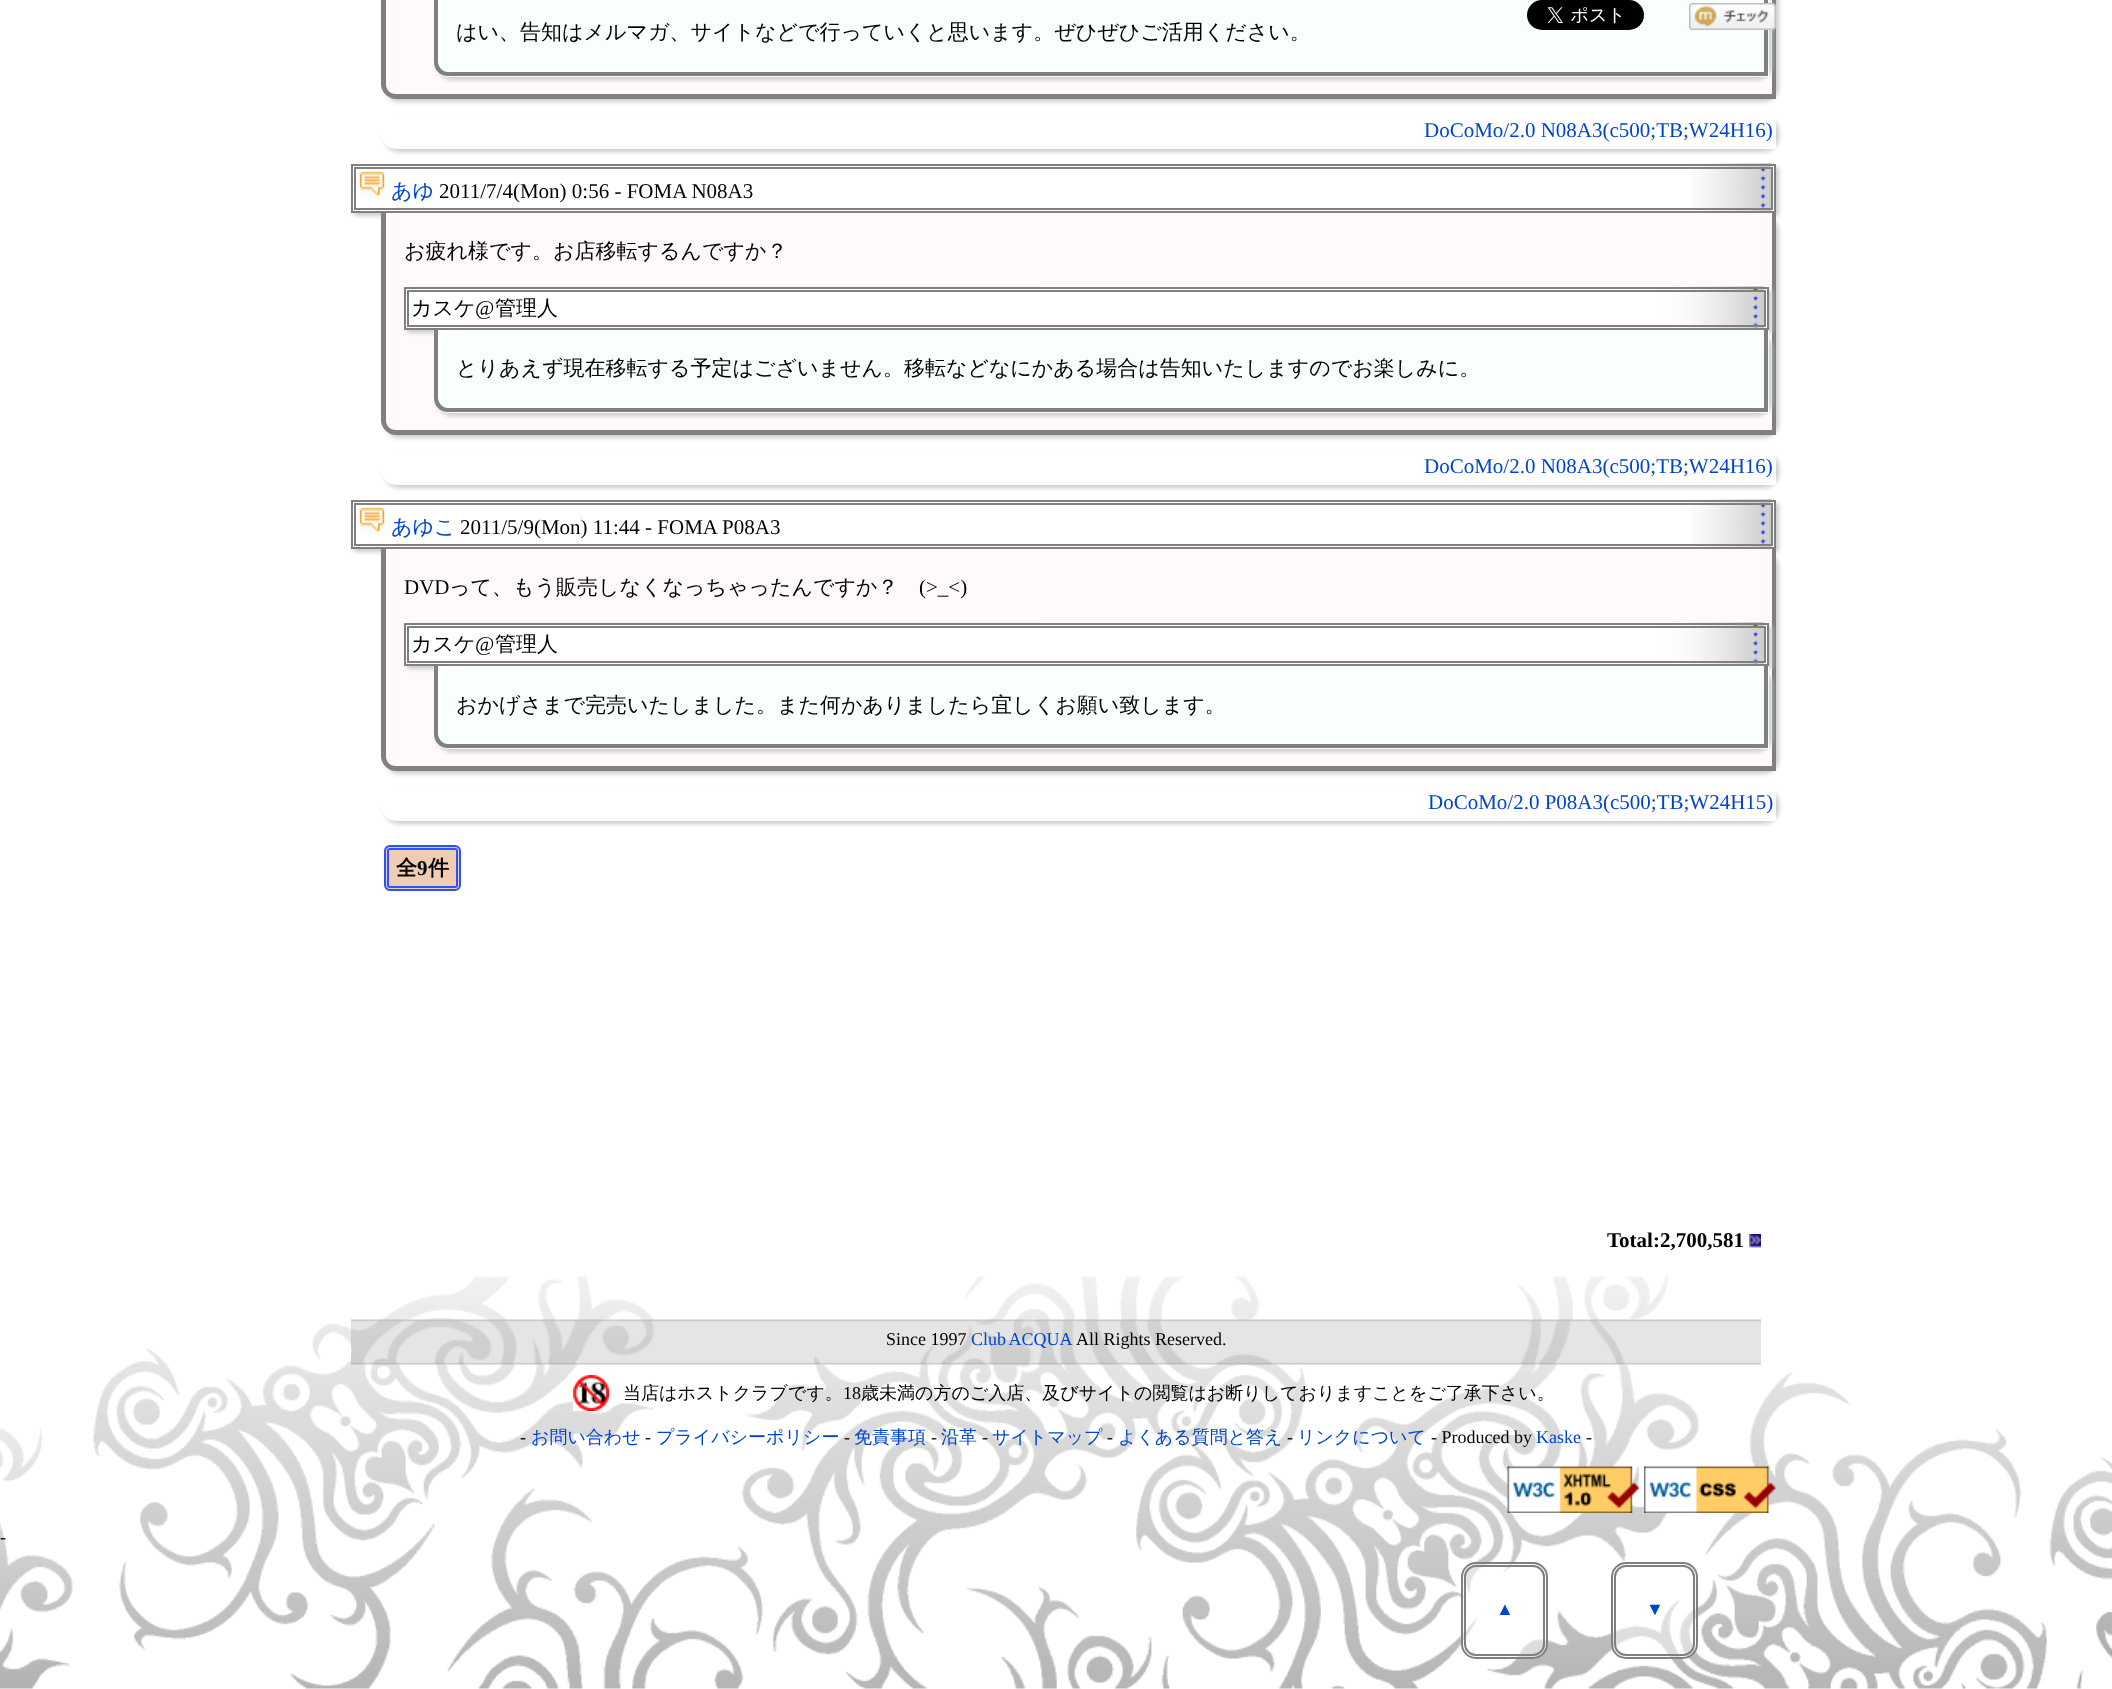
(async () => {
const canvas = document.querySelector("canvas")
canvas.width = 2112
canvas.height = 1689
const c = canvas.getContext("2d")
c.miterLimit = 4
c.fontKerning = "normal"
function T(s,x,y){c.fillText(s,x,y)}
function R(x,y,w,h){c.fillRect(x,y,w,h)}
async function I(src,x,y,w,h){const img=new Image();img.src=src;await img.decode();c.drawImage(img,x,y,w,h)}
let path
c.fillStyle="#fff"
R(0,0,2112,1689)
c.fillStyle="#ccc"
c.filter="blur(2px)"
c.beginPath()
c.roundRect(384,-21,1395,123,15)
c.fill()
c.filter="none"
c.fillStyle="#fff9fa"
path = new Path2D("M381-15h1395v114h-1380c-8.5 0-15-6.5-15-15z")
c.fill(path)
c.fillStyle="#808080"
path = new Path2D("M381-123h1395v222h-1380c-8 0-15-7-15-15zm5 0h1386v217h-1376c-6 0-10-4-10-10z")
c.fill(path,"evenodd")
c.fillStyle="#ccc"
c.filter="blur(2px)"
c.beginPath()
c.roundRect(437,-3,1335,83,15)
c.fill()
c.filter="none"
c.fillStyle="#f9fffa"
path = new Path2D("M434-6h1335v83h-1320c-8.5 0-15-6.5-15-15z")
c.fill(path)
c.fillStyle="#808080"
path = new Path2D("M434-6h1334v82h-1320c-8 0-14-6-14-14zm4 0h1326v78h-1316c-5 0-10-5-10-10z")
c.fill(path,"evenodd")
await I("1.png",1527,0,117,30)
await I("2.png",1689,3,87,27)
c.font="500 21px WenQuanYi Zen Hei"
c.fillStyle="#000"
T("はい、告知はメルマガ、サイトなどで行っていくと思います。ぜひぜひご活用ください。",456,39)
c.fillStyle="#ccc"
c.filter="blur(2px)"
c.beginPath()
c.roundRect(384,117,1395,35,15)
c.fill()
c.filter="none"
c.fillStyle="#fff"
c.beginPath()
c.roundRect(381,114,1395,35,[0,0,0,15])
c.fill()
c.font="21px Liberation Serif"
c.fillStyle="#04c"
T("DoCoMo/2.0 N08A3(c500;TB;W24H16)",1424,137)
c.save()
path = new Path2D("M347 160h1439v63h-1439zm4 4h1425v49h-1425z")
c.clip(path,"evenodd")
c.fillStyle="#ccc"
c.filter="blur(2px)"
c.beginPath()
c.rect(354,167,1425,49)
c.fill()
c.filter="none"
c.restore()
await I("3.png",1691,163,81,48)
c.strokeStyle="#808080"
c.lineWidth=2
c.strokeRect(352,165,1423,47)
c.strokeRect(355,168,1417,41)
await I("4.png",359,170,26,27)
c.font="500 21px WenQuanYi Zen Hei"
T("あゆ",391,198)
c.font="21px Liberation Serif"
c.fillStyle="#000"
T("2011/7/4(Mon) 0:56 - FOMA N08A3",439,198)
c.fillStyle="#ccc"
c.filter="blur(2px)"
c.beginPath()
c.roundRect(384,216,1395,222,15)
c.fill()
c.filter="none"
c.fillStyle="#fff9fa"
c.beginPath()
c.roundRect(381,213,1395,222,[0,0,0,15])
c.fill()
c.fillStyle="#808080"
path = new Path2D("M381 213h1395v222h-1380c-8 0-15-7-15-15zm5 0h1386v217h-1376c-6 0-10-4-10-10z")
c.fill(path,"evenodd")
c.font="500 21px WenQuanYi Zen Hei"
c.fillStyle="#000"
T("お疲れ様です。お店移転するんですか？",404,258)
c.fillStyle="#ccc"
c.filter="blur(2px)"
c.beginPath()
c.rect(407,290,1365,43)
c.fill()
c.filter="none"
c.fillStyle="#fff"
R(406,289,1361,39)
await I("5.png",1044,286,720,42)
c.strokeRect(405,288,1363,41)
c.strokeRect(408,291,1357,35)
c.fillStyle="#000"
T("カスケ",411,315)
c.font="21px Liberation Serif"
T("@",475,315)
c.font="500 21px WenQuanYi Zen Hei"
T("管理人",495,315)
c.fillStyle="#ccc"
c.filter="blur(2px)"
c.beginPath()
c.roundRect(437,333,1335,83,15)
c.fill()
c.filter="none"
c.fillStyle="#f9fffa"
c.beginPath()
c.roundRect(434,330,1335,83,[0,0,0,15])
c.fill()
c.fillStyle="#808080"
path = new Path2D("M434 330h1334v82h-1320c-8 0-14-6-14-14zm4 0h1326v78h-1316c-5 0-10-5-10-10z")
c.fill(path,"evenodd")
c.fillStyle="#000"
T("とりあえず現在移転する予定はございません。移転などなにかある場合は告知いたしますのでお楽しみに。",456,375)
c.fillStyle="#ccc"
c.filter="blur(2px)"
c.beginPath()
c.roundRect(384,453,1395,35,15)
c.fill()
c.filter="none"
c.fillStyle="#fff"
c.beginPath()
c.roundRect(381,450,1395,35,[0,0,0,15])
c.fill()
c.font="21px Liberation Serif"
c.fillStyle="#04c"
T("DoCoMo/2.0 N08A3(c500;TB;W24H16)",1424,473)
c.save()
path = new Path2D("M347 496h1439v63h-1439zm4 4h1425v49h-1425z")
c.clip(path,"evenodd")
c.fillStyle="#ccc"
c.filter="blur(2px)"
c.beginPath()
c.rect(354,503,1425,49)
c.fill()
c.filter="none"
c.restore()
await I("3.png",1691,499,81,48)
c.strokeRect(352,501,1423,47)
c.strokeRect(355,504,1417,41)
await I("4.png",359,506,26,27)
c.font="500 21px WenQuanYi Zen Hei"
T("あゆこ",391,534)
c.font="21px Liberation Serif"
c.fillStyle="#000"
T("2011/5/9(Mon) 11:44 - FOMA P08A3",460,534)
c.fillStyle="#ccc"
c.filter="blur(2px)"
c.beginPath()
c.roundRect(384,552,1395,222,15)
c.fill()
c.filter="none"
c.fillStyle="#fff9fa"
c.beginPath()
c.roundRect(381,549,1395,222,[0,0,0,15])
c.fill()
c.fillStyle="#808080"
path = new Path2D("M381 549h1395v222h-1380c-8 0-15-7-15-15zm5 0h1386v217h-1376c-6 0-10-4-10-10z")
c.fill(path,"evenodd")
c.fillStyle="#000"
T("DVD",404,594)
c.font="500 21px WenQuanYi Zen Hei"
T("って、もう販売しなくなっちゃったんですか？",449,594)
c.font="21px Liberation Serif"
T("(>_<)",919,594)
c.fillStyle="#ccc"
c.filter="blur(2px)"
c.beginPath()
c.rect(407,626,1365,43)
c.fill()
c.filter="none"
c.fillStyle="#fff"
R(406,625,1361,39)
await I("5.png",1044,622,720,42)
c.strokeRect(405,624,1363,41)
c.strokeRect(408,627,1357,35)
c.font="500 21px WenQuanYi Zen Hei"
c.fillStyle="#000"
T("カスケ",411,651)
c.font="21px Liberation Serif"
T("@",475,651)
c.font="500 21px WenQuanYi Zen Hei"
T("管理人",495,651)
c.fillStyle="#ccc"
c.filter="blur(2px)"
c.beginPath()
c.roundRect(437,669,1335,83,15)
c.fill()
c.filter="none"
c.fillStyle="#f9fffa"
c.beginPath()
c.roundRect(434,666,1335,83,[0,0,0,15])
c.fill()
c.fillStyle="#808080"
path = new Path2D("M434 666h1334v82h-1320c-8 0-14-6-14-14zm4 0h1326v78h-1316c-5 0-10-5-10-10z")
c.fill(path,"evenodd")
c.fillStyle="#000"
T("おかげさまで完売いたしました。また何かありましたら宜しくお願い致します。",456,712)
c.fillStyle="#ccc"
c.filter="blur(2px)"
c.beginPath()
c.roundRect(384,789,1395,35,15)
c.fill()
c.filter="none"
c.fillStyle="#fff"
c.beginPath()
c.roundRect(381,786,1395,35,[0,0,0,15])
c.fill()
c.font="21px Liberation Serif"
c.fillStyle="#04c"
T("DoCoMo/2.0 P08A3(c500;TB;W24H15)",1428,809)
c.fillStyle="#eecdb2"
c.beginPath()
c.roundRect(385,846,75,44,5)
c.fill()
c.strokeStyle="#2652ff"
c.stroke()
c.beginPath()
c.roundRect(388,849,69,38,2)
c.stroke()
c.font="bold 21px WenQuanYi Zen Hei"
c.fillStyle="#000"
T("全",396,875)
c.font="bold 21px Liberation Serif"
T("9",417,875)
c.font="bold 21px WenQuanYi Zen Hei"
T("件",428,875)
c.font="bold 21px Liberation Serif"
T("Total:2,700,581",1607,1247)
await I("6.png",1749,1234,12,14)
await I("7.png",0,1276,2112,413)
await I("8.png",351,1319,1410,46)
c.font="18px Liberation Serif"
T("Since 1997",886,1345)
c.wordSpacing="-1px"
c.fillStyle="#04c"
T("Club ACQUA",971,1345)
c.wordSpacing="0px"
c.fillStyle="#000"
T("All Rights Reserved.",1076,1345)
await I("9.png",573,1375,36,36)
c.font="500 18px WenQuanYi Zen Hei"
T("当店はホストクラブです。",623,1399)
c.font="18px Liberation Serif"
T("18",843,1399)
c.font="500 18px WenQuanYi Zen Hei"
T("歳未満の方のご入店、及びサイトの閲覧はお断りしておりますことをご了承下さい。",861,1399)
c.font="18px Liberation Serif"
T("-",520,1443)
c.font="500 18px WenQuanYi Zen Hei"
c.fillStyle="#04c"
T("お問い合わせ",531,1443)
c.font="18px Liberation Serif"
c.fillStyle="#000"
T("-",645,1443)
c.font="500 18px WenQuanYi Zen Hei"
c.fillStyle="#04c"
T("プライバシーポリシー",656,1443)
c.font="18px Liberation Serif"
c.fillStyle="#000"
T("-",844,1443)
c.font="500 18px WenQuanYi Zen Hei"
c.fillStyle="#04c"
T("免責事項",854,1443)
c.font="18px Liberation Serif"
c.fillStyle="#000"
T("-",931,1443)
c.font="500 18px WenQuanYi Zen Hei"
c.fillStyle="#04c"
T("沿革",941,1443)
c.font="18px Liberation Serif"
c.fillStyle="#000"
T("-",982,1443)
c.font="500 18px WenQuanYi Zen Hei"
c.fillStyle="#04c"
T("サイトマップ",992,1443)
c.font="18px Liberation Serif"
c.fillStyle="#000"
T("-",1107,1443)
c.font="500 18px WenQuanYi Zen Hei"
c.fillStyle="#04c"
T("よくある質問と答え",1118,1443)
c.font="18px Liberation Serif"
c.fillStyle="#000"
T("-",1287,1443)
c.font="500 18px WenQuanYi Zen Hei"
c.fillStyle="#04c"
T("リンクについて",1297,1443)
c.font="18px Liberation Serif"
c.fillStyle="#000"
T("- Produced by",1431,1443)
c.fillStyle="#04c"
T("Kaske",1536,1443)
c.fillStyle="#000"
T("-",1586,1443)
await I("10.png",1507,1466,133,47)
await I("11.png",1644,1466,132,47)
T("-",0,1543)
c.fillStyle="#ffffff80"
c.beginPath()
c.roundRect(1462,1563,85,95,14)
c.fill()
c.strokeStyle="#808080"
c.stroke()
c.beginPath()
c.roundRect(1465,1566,79,89,11)
c.stroke()
c.font="bold 18px Liberation Serif"
c.fillStyle="#04c"
T("▲",1496,1615)
c.fillStyle="#ffffff80"
c.beginPath()
c.roundRect(1612,1563,85,95,14)
c.fill()
c.stroke()
c.beginPath()
c.roundRect(1615,1566,79,89,11)
c.stroke()
c.fillStyle="#04c"
T("▼",1646,1615)
})()
